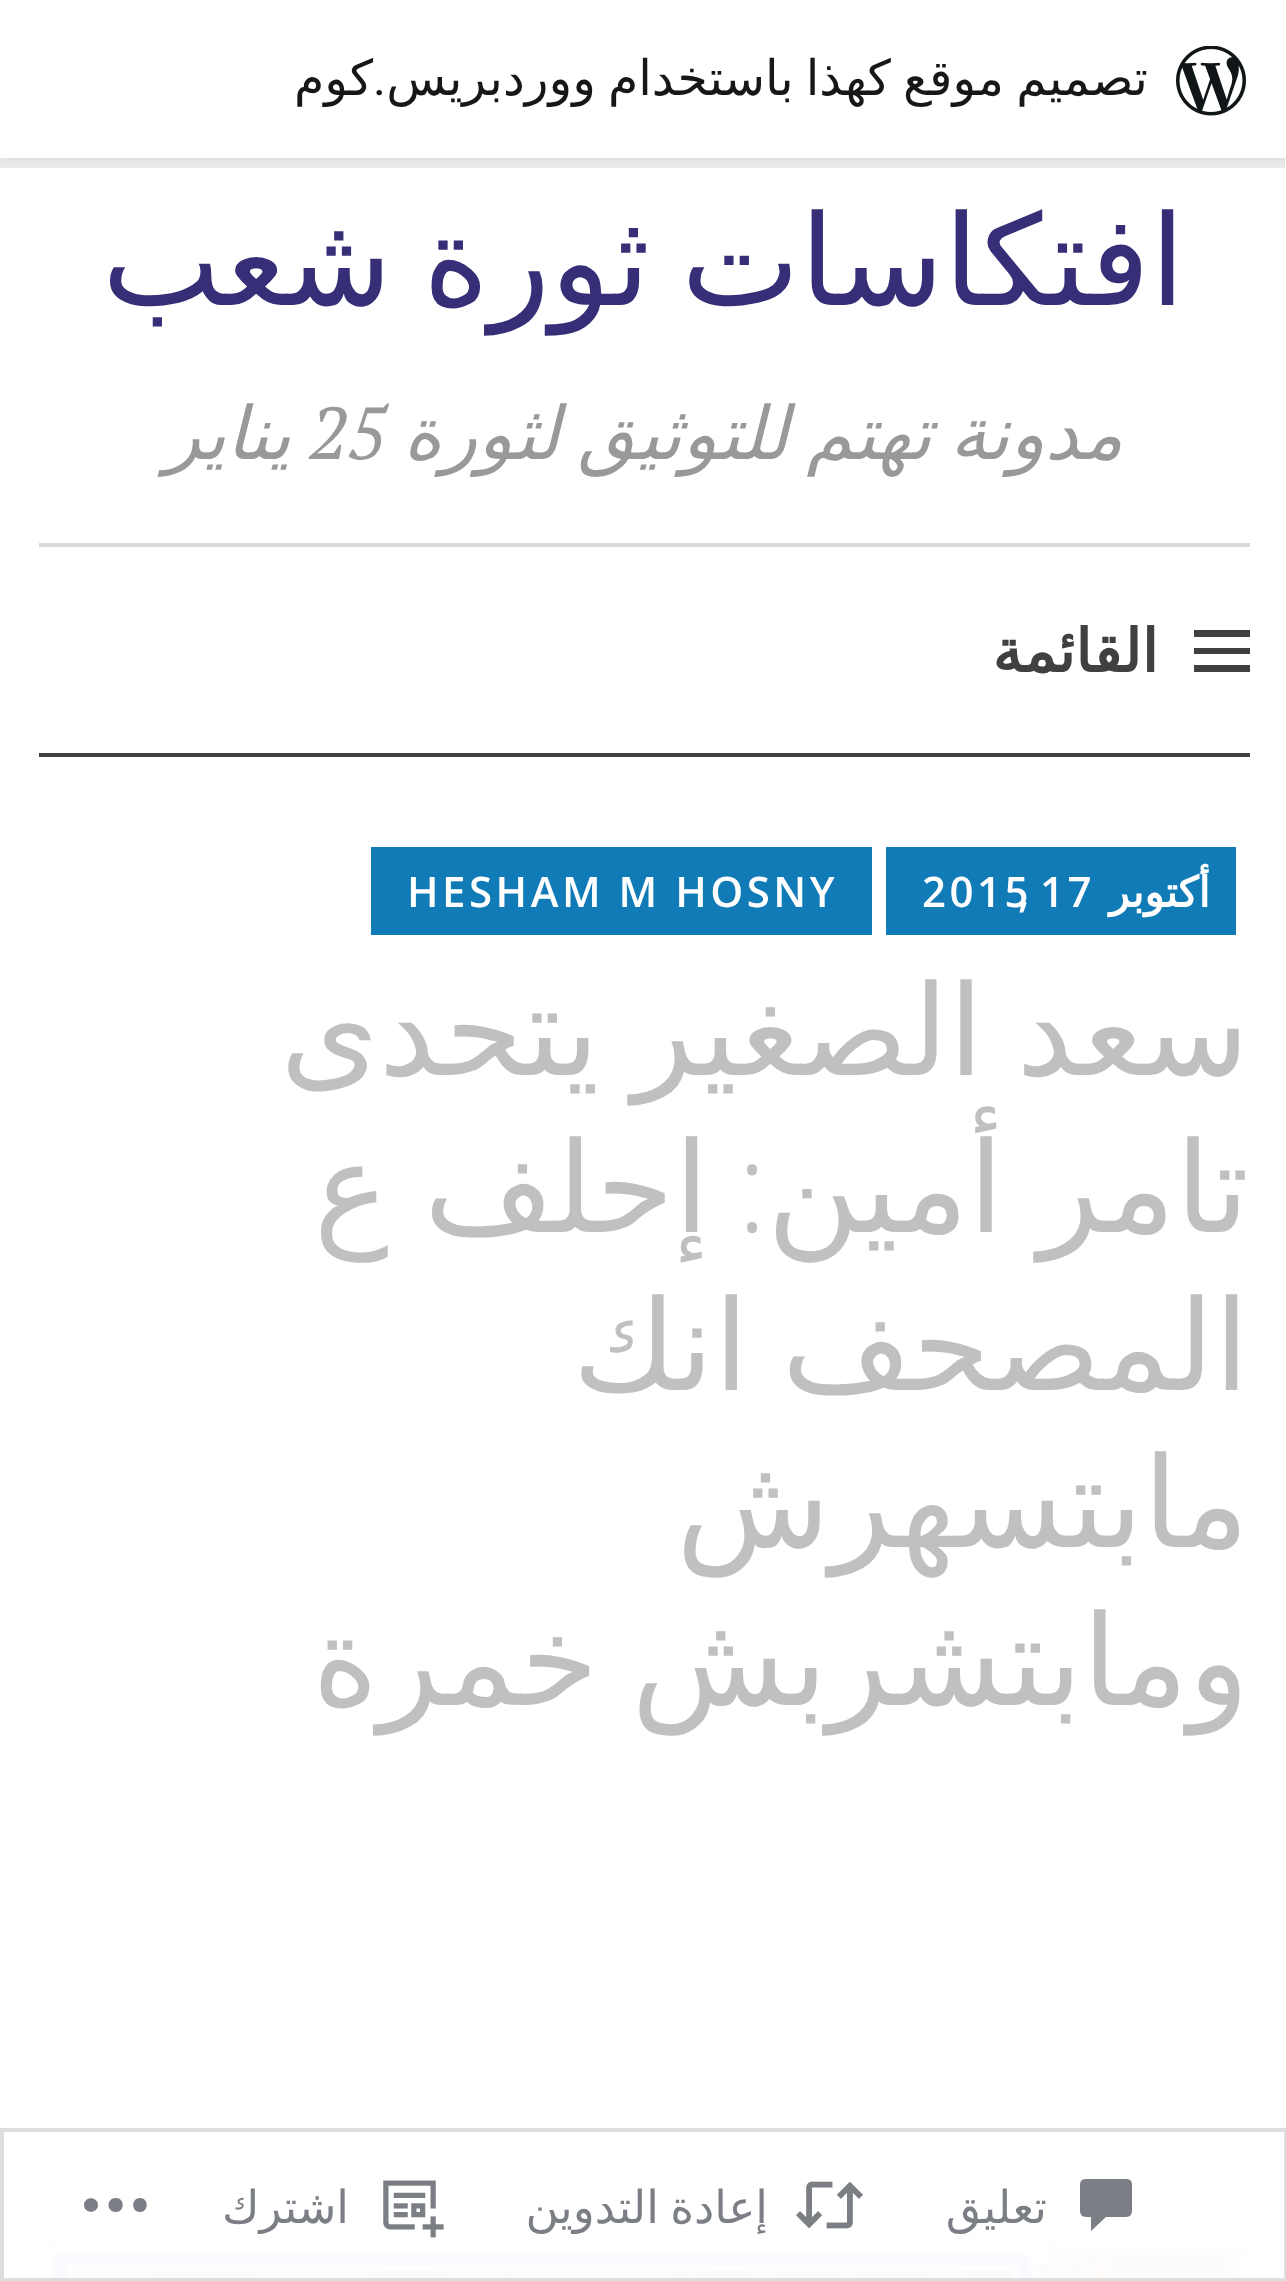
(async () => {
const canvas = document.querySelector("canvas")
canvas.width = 1286
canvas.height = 2281
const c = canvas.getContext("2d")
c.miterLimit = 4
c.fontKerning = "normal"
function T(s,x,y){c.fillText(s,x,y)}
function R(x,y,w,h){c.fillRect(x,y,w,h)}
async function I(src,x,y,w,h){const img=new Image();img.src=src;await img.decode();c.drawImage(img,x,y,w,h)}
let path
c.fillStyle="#fff"
R(0,0,1286,2281)
c.fillStyle="#0000000d"
c.filter="blur(3.5px)"
c.beginPath()
c.rect(0,4,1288,157)
c.fill()
c.filter="none"
c.fillStyle="#00000014"
path = new Path2D("M-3 11v157h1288v-10h-1285v-147z")
c.fill(path)
c.fillStyle="#fff"
R(0,1,1286,157)
await I("1.png",1176,46,70,70)
c.wordSpacing="-3.5px"
c.direction="rtl"
c.font="49px DejaVu Sans"
c.fillStyle="#171717"
T("تصميم موقع كهذا باستخدام ووردبريس",1148,95)
c.wordSpacing="0px"
c.font="49px Roboto"
T(".",386,95)
c.font="49px DejaVu Sans"
T("كوم",373,95)
c.wordSpacing="-9px"
c.font="126px DejaVu Sans"
c.fillStyle="#362e77"
T("افتكاسات ثورة شعب",1185,305)
c.wordSpacing="-5.5px"
c.font="italic 73.5px DejaVu Sans"
c.fillStyle="#999"
T("مدونة تهتم للتوثيق لثورة",1123,459)
c.wordSpacing="0px"
c.direction="ltr"
c.font="italic 73.5px PT Serif"
T("25",309,459)
c.direction="rtl"
c.font="italic 73.5px DejaVu Sans"
T("يناير",291,459)
c.fillStyle="#d9d9d9"
R(39,543,1211,4)
c.fillStyle="#404040"
R(39,753,1211,4)
path = new Path2D("M1194 672v-7h56v7zm0-42h56v7h-56zm0 24v-6h56v6z")
c.fill(path)
c.font="bold 59.5px DejaVu Sans"
T("القائمة",1158,672)
c.fillStyle="#117bb8"
R(886,847,350,88)
c.letterSpacing="3.5px"
c.direction="ltr"
c.font="600 42px Open Sans"
c.fillStyle="#fff"
T("17",1040,907)
c.direction="rtl"
c.font="bold 42px DejaVu Sans"
T("أكتوبر",1210,907)
c.direction="ltr"
c.font="600 42px Open Sans"
T("2015",922,907)
T(",",1018,907)
c.fillStyle="#117bb8"
R(371,847,501,88)
c.fillStyle="#fff"
T("HESHAM M HOSNY",407,907)
c.letterSpacing="0px"
c.wordSpacing="-7px"
c.direction="rtl"
c.font="126px DejaVu Sans"
c.fillStyle="#c0c0c0"
T("سعد الصغير يتحدى",1249,1075)
c.wordSpacing="-5px"
T("تامر أمين",1249,1232)
c.wordSpacing="0px"
c.font="300 126px Open Sans"
T(":",767,1232)
c.wordSpacing="-5px"
c.font="126px DejaVu Sans"
T("إحلف ع",709,1232)
c.wordSpacing="-7px"
T("المصحف انك",1249,1390)
c.wordSpacing="0px"
T("مابتسهرش",1249,1547)
c.wordSpacing="-7px"
T("ومابتشربش خمرة",1249,1705)
await I("2.png",38,2236,1212,45)
c.strokeStyle="#dcdcdefa"
c.lineWidth=4
c.strokeRect(2,2130,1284,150)
c.fillStyle="#7b7f85"
path = new Path2D("M1106 2217l-15 14v-14h-5c-4 0-6-3-6-6v-26c0-4 2-6 6-6h40c4 0 6 2 6 6v26c0 3-2 6-6 6z")
c.fill(path)
c.wordSpacing="0px"
c.font="45.5px DejaVu Sans"
T("تعليق",1047,2223)
await I("3.png",796,2181,67,48)
c.wordSpacing="-3px"
T("إعادة التدوين",768,2223)
await I("4.png",383,2180,61,58)
c.wordSpacing="0px"
T("اشترك",349,2223)
path = new Path2D("M98 2205c0 9-14 9-14 0c0-9 14-9 14 0zm42-7c-9 0-9 14 0 14c9 0 9-14 0-14zm-24 0c-10 0-10 14 0 14c9 0 9-14 0-14z")
c.fill(path)
})()
